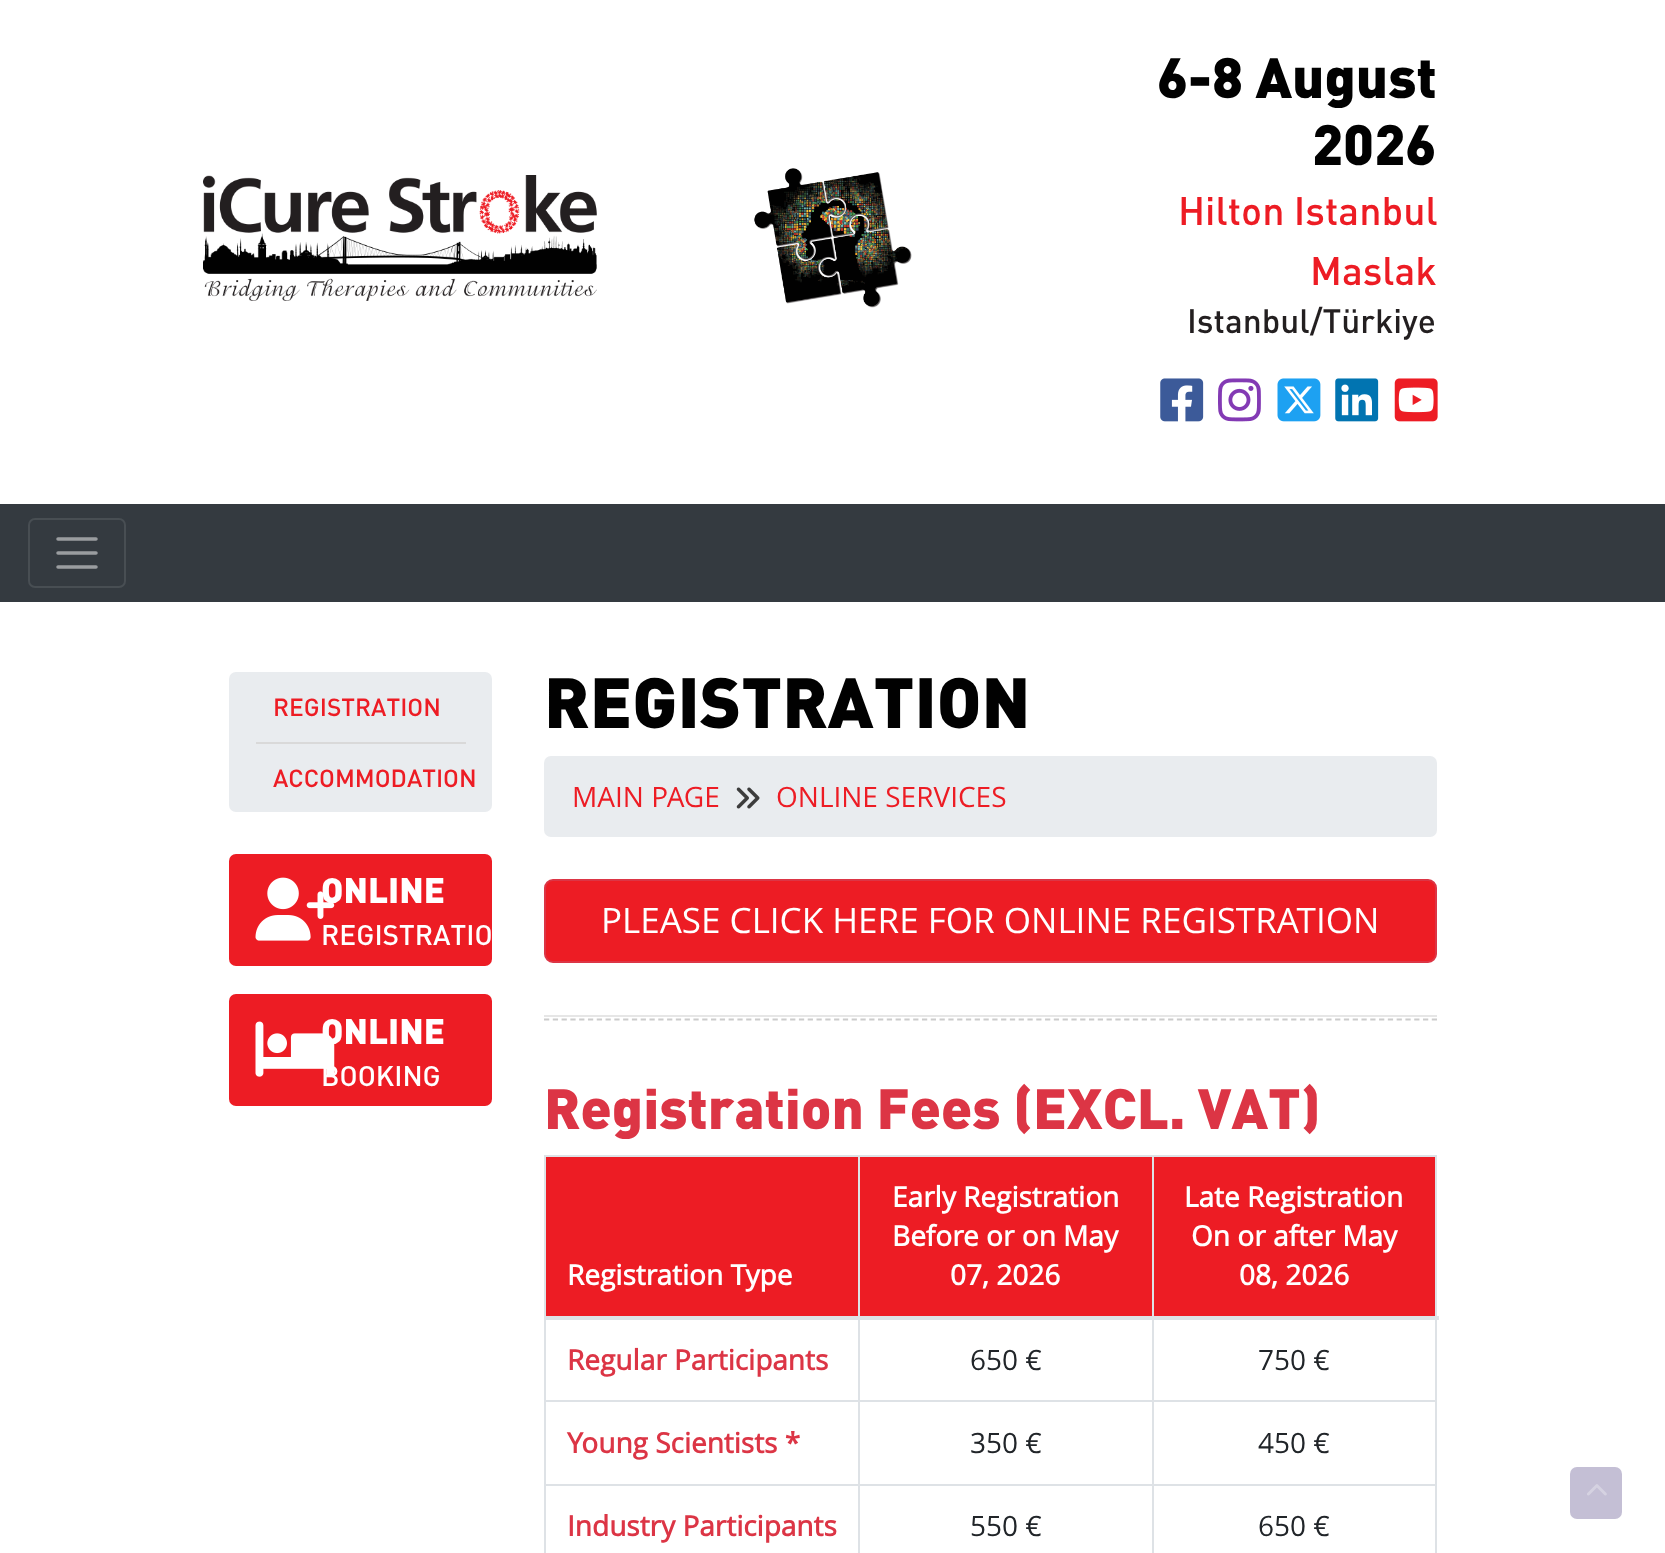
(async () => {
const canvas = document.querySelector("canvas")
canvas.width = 1665
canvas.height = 1553
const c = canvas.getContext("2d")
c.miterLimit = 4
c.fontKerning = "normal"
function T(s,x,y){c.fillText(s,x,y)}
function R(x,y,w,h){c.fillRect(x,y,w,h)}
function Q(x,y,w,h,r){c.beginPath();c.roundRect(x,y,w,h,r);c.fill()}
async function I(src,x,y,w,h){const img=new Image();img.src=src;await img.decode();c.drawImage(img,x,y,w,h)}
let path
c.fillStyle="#fff"
R(0,0,1665,1553)
await I("1.png",203,175,394,126)
await I("2.png",754,168,158,140)
c.font="900 56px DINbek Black"
c.fillStyle="#010101"
T("6-8 August",1157,98)
T("2026",1312,165)
c.font="500 39.25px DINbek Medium"
c.fillStyle="#ed1c24"
T("Hilton Istanbul",1178,225)
T("Maslak",1310,285)
c.font="500 33.5px DINbek Medium"
c.fillStyle="#231f20"
T("Istanbul/Türkiye",1187,333)
await I("3.png",1160,378,44,44)
await I("4.png",1218,378,43,44)
await I("5.png",1277,378,44,44)
await I("6.png",1335,378,44,44)
await I("7.png",1394,378,44,44)
c.fillStyle="#343a40"
R(0,504,1665,98)
c.beginPath()
c.roundRect(29,519,96,68,6)
c.strokeStyle="#484e53"
c.lineWidth=2
c.stroke()
path = new Path2D("M58 539h38m-38 14h38m-38 14h38")
c.strokeStyle="#9a9da0"
c.lineWidth=3.5
c.lineCap="round"
c.stroke(path)
c.fillStyle="#e9ecef"
c.beginPath()
c.roundRect(229,672,263,72,[7,7,0,0])
c.fill()
c.fillStyle="#d9d9d9"
R(256,742,210,2)
c.font="500 24.5px DINbek Medium"
c.fillStyle="#ed1c24"
T("REGISTRATION",273,716)
c.fillStyle="#e9ecef"
c.beginPath()
c.roundRect(229,744,263,68,[0,0,7,7])
c.fill()
c.fillStyle="#ed1c24"
T("ACCOMMODATION",273,787)
Q(229,854,263,112,7)
await I("8.png",255,877,80,64)
c.font="900 35px DINbek Black"
c.fillStyle="#fff"
T("ONLINE",321,903)
c.font="500 28px DINbek Medium"
T("REGISTRATIO",321,945)
c.fillStyle="#ed1c24"
Q(229,994,263,112,7)
await I("9.png",255,1021,80,56)
c.font="900 35px DINbek Black"
c.fillStyle="#fff"
T("ONLINE",321,1044)
c.font="500 28px DINbek Medium"
T("BOOKING",321,1086)
c.font="900 70px DINbek Black"
c.fillStyle="#010101"
T("REGISTRATION",544,728)
c.fillStyle="#e9ecef"
Q(544,756,893,81,7)
c.font="28px Open Sans"
c.fillStyle="#ed1c24"
T("MAIN PAGE",572,807)
await I("10.png",736,787,24,22)
T("ONLINE SERVICES",776,807)
c.beginPath()
c.roundRect(545,880,891,82,8)
c.fill()
c.strokeStyle="#dc3545"
c.lineWidth=2
c.stroke()
c.font="35px Open Sans"
c.fillStyle="#fff"
T("PLEASE CLICK HERE FOR ONLINE REGISTRATION",601,933)
c.fillStyle="#e6e6e6"
R(544,1015,893,2)
path = new Path2D("M544 1019.5h893")
c.strokeStyle="#ccc"
c.lineWidth=1.8
c.lineCap="butt"
c.setLineDash([5.25,3.54])
c.stroke(path)
c.font="900 56px DINbek Black"
c.fillStyle="#dc3545"
T("Registration Fees (EXCL. VAT)",544,1129)
c.fillStyle="#dee2e6"
R(544,1155,893,2)
R(1435,1155,2,398)
R(544,1155,2,398)
c.fillStyle="#ed1c24"
R(546,1157,889,159)
c.font="bold 28px Open Sans"
c.fillStyle="#fff"
T("Registration Type",567,1285)
T("Early Registration",892,1207)
T("Before or on May",892,1246)
T("07, 2026",950,1285)
c.fillStyle="#dee2e6"
R(1152,1400,285,2)
R(1152,1484,285,2)
R(1152,1484,2,69)
R(858,1484,295,2)
R(1152,1400,2,86)
R(858,1400,295,2)
R(858,1484,2,69)
R(544,1484,315,2)
R(858,1400,2,86)
R(544,1400,315,2)
R(858,1155,2,247)
R(1152,1155,2,247)
R(544,1316,895,4)
c.fillStyle="#fff"
T("Late Registration",1184,1207)
T("On or after May",1191,1246)
T("08, 2026",1239,1285)
c.fillStyle="#dc3545"
T("Regular Participants",567,1370)
c.font="28px Open Sans"
c.fillStyle="#212529"
T("650 €",970,1370)
T("750 €",1258,1370)
c.font="bold 28px Open Sans"
c.fillStyle="#dc3545"
T("Young Scientists *",567,1453)
c.font="28px Open Sans"
c.fillStyle="#212529"
T("350 €",970,1453)
T("450 €",1258,1453)
c.font="bold 28px Open Sans"
c.fillStyle="#dc3545"
T("Industry Participants",567,1536)
c.font="28px Open Sans"
c.fillStyle="#212529"
T("550 €",970,1536)
T("650 €",1258,1536)
c.fillStyle="#c4bfd5"
Q(1570,1467,52,52,7)
await I("11.png",1587,1484,20,12)
})()
